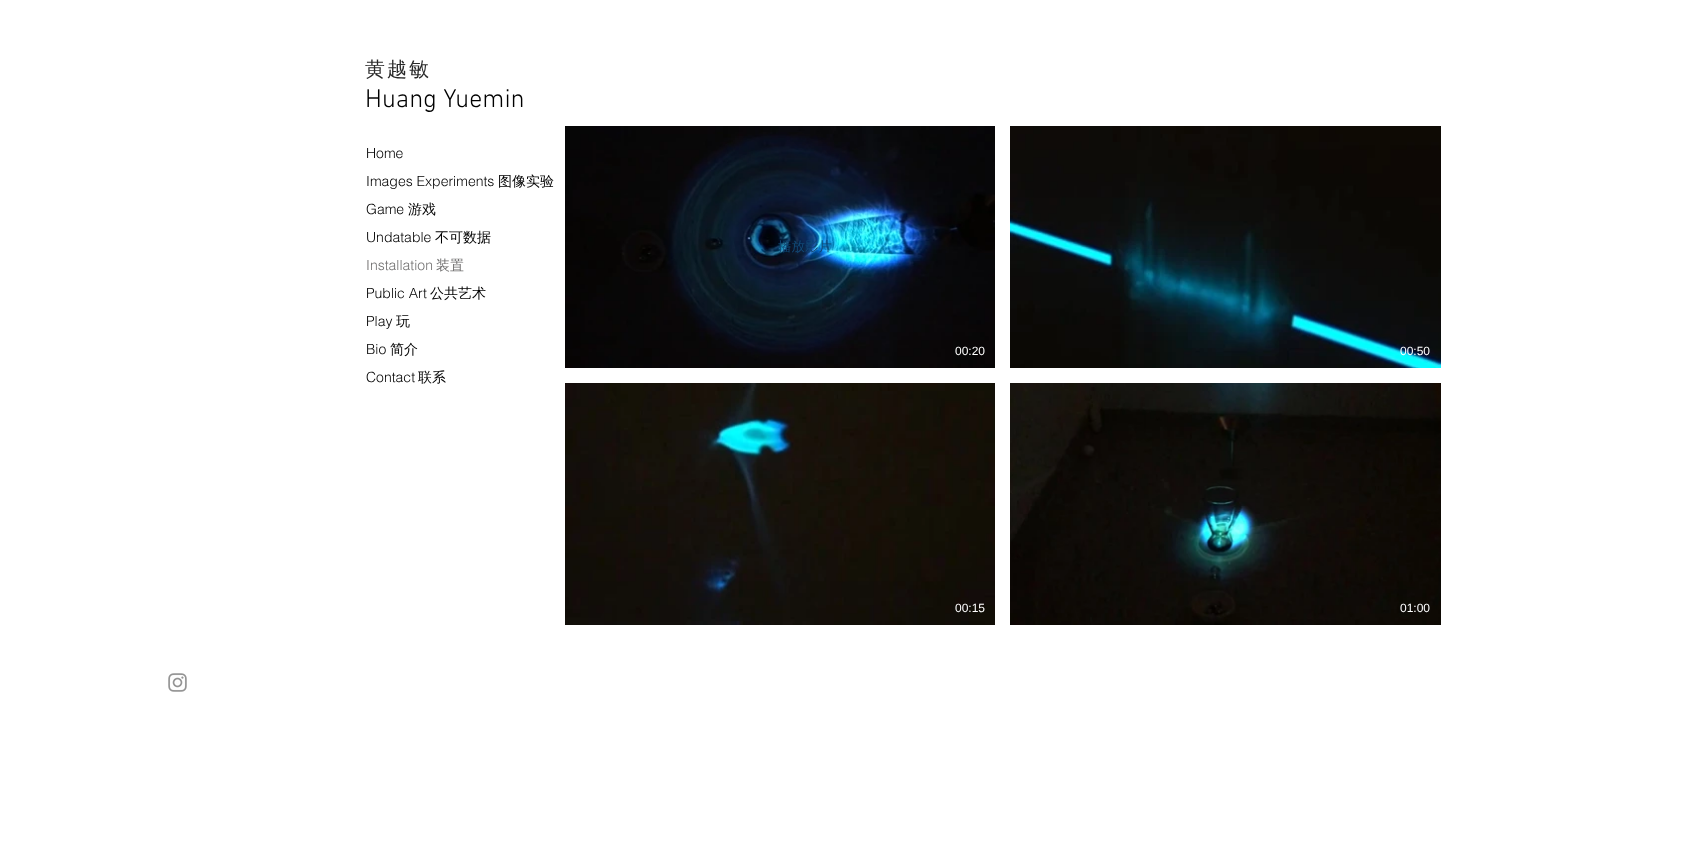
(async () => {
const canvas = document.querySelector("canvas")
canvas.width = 1691
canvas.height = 862
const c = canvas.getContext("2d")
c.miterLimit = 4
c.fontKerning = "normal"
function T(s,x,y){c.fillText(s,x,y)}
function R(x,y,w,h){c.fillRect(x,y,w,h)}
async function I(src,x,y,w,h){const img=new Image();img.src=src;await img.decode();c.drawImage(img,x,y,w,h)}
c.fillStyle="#fff"
R(0,0,1691,862)
c.letterSpacing="2px"
c.font="500 20px WenQuanYi Zen Hei"
c.fillStyle="#292929"
T("黄越敏",365,76)
c.letterSpacing="0px"
c.font="300 26px 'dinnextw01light'"
c.fillStyle="#000"
T("Huang Yuemin",365,107)
c.font="300 14px helvetica"
T("Home",366,158)
T("Images Experiments",366,186)
c.font="500 14px WenQuanYi Zen Hei"
T("图像实验",498,186)
c.font="300 14px helvetica"
T("Game",366,214)
c.font="500 14px WenQuanYi Zen Hei"
T("游戏",408,214)
c.font="300 14px helvetica"
T("Undatable",366,242)
c.font="500 14px WenQuanYi Zen Hei"
T("不可数据",435,242)
c.font="300 14px helvetica"
c.fillStyle="#717070"
T("Installation",366,270)
c.font="500 14px WenQuanYi Zen Hei"
T("装置",436,270)
c.font="300 14px helvetica"
c.fillStyle="#000"
T("Public Art",366,298)
c.font="500 14px WenQuanYi Zen Hei"
T("公共艺术",430,298)
c.font="300 14px helvetica"
T("Play",366,326)
c.font="500 14px WenQuanYi Zen Hei"
T("玩",396,326)
c.font="300 14px helvetica"
T("Bio",366,354)
c.font="500 14px WenQuanYi Zen Hei"
T("简介",390,354)
c.font="300 14px helvetica"
T("Contact",366,382)
c.font="500 14px WenQuanYi Zen Hei"
T("联系",418,382)
await I("1.png",565,126,430,242)
await I("2.png",639,206,354,60)
c.font="500 13.5px WenQuanYi Zen Hei"
c.fillStyle="#114875"
T("播放影片",778,251)
c.font="12px Liberation Sans"
c.fillStyle="#fff"
T("00:20",955,355)
await I("3.png",1010,126,431,242)
await I("4.png",1011,206,430,162)
T("00:50",1400,355)
await I("5.png",565,383,430,242)
await I("6.png",717,428,11,19)
T("00:15",955,612)
await I("7.png",1010,383,431,242)
await I("8.png",1010,409,246,204)
T("01:00",1400,612)
await I("9.png",168,673,19,19)
})()
